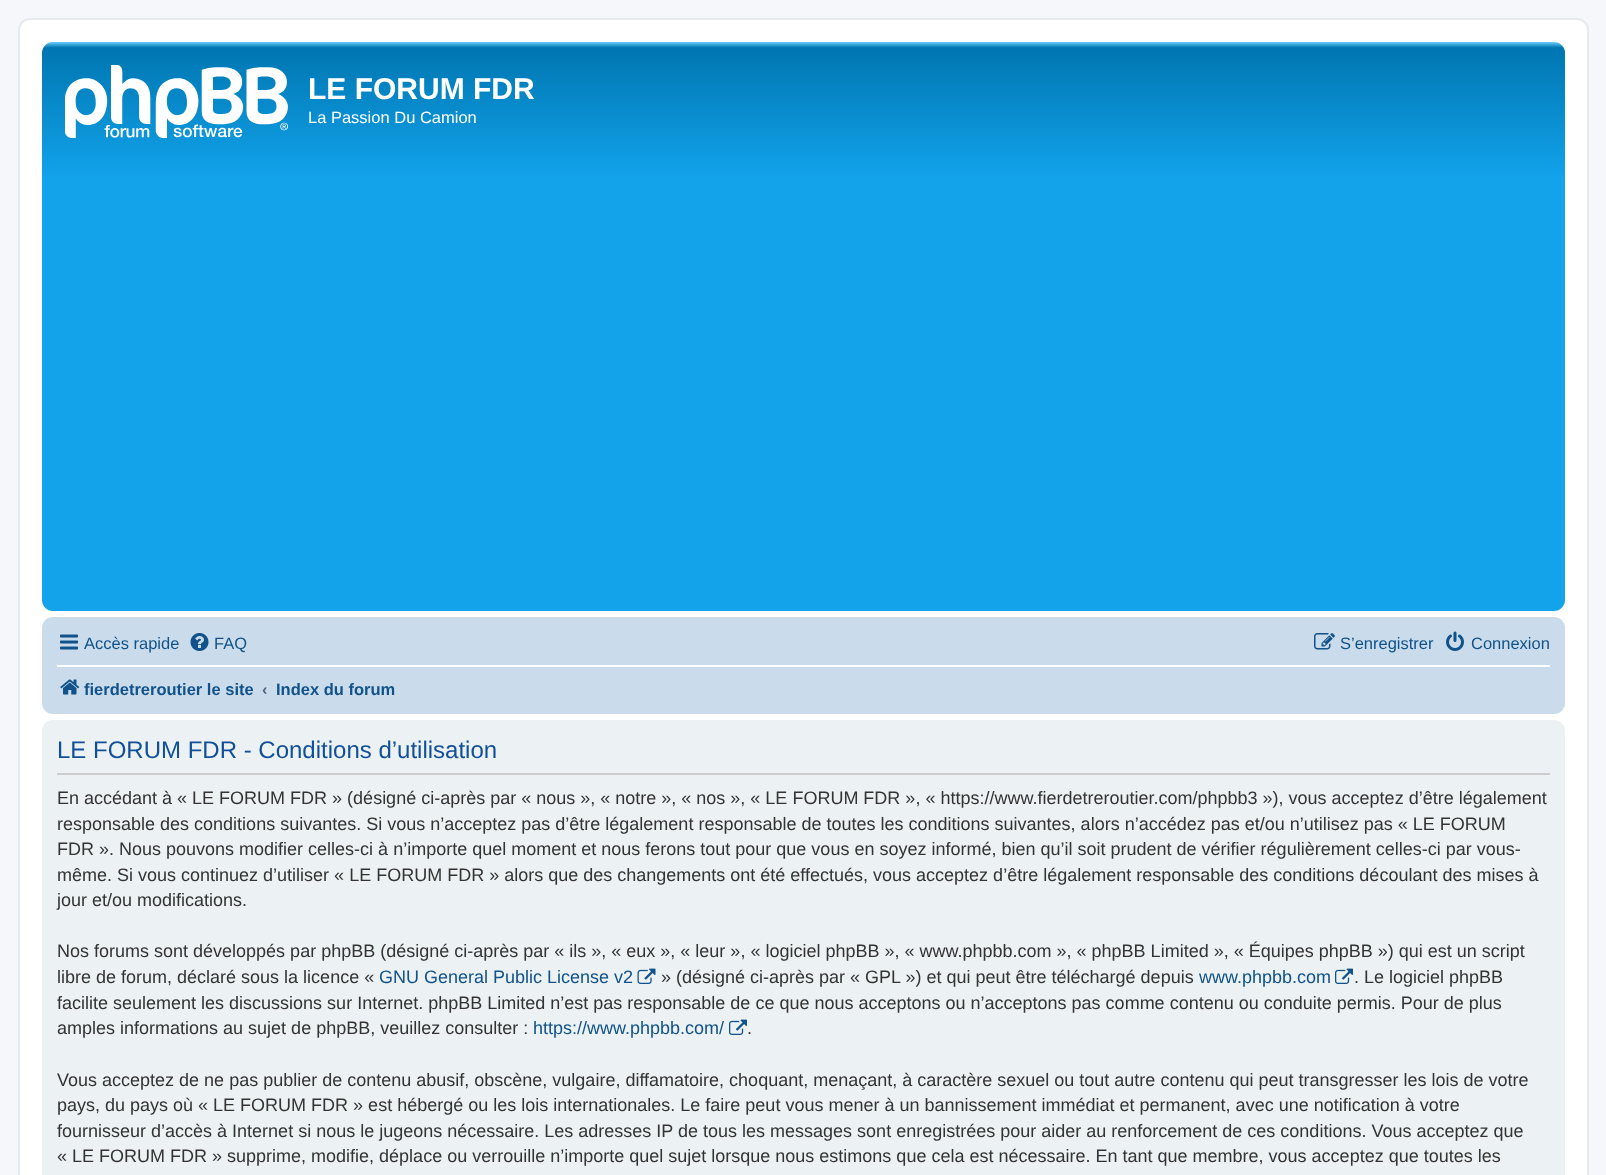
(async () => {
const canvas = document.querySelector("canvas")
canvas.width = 1606
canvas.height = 1175
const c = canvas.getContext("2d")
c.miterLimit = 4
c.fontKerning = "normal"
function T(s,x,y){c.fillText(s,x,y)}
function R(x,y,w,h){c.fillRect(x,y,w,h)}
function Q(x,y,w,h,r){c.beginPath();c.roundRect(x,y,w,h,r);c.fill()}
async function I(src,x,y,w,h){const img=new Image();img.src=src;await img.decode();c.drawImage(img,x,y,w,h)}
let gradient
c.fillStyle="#f5f7fa"
R(0,0,1606,1175)
c.fillStyle="#fff"
c.beginPath()
c.roundRect(19,19,1569,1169,11)
c.fill()
c.strokeStyle="#e6e9ed"
c.lineWidth=2
c.stroke()
gradient = c.createLinearGradient(803,42,803,611)
gradient.addColorStop(0,"#6aceff")
gradient.addColorStop(.01,"#0076b1")
gradient.addColorStop(.24,"#12a3eb")
gradient.addColorStop(1,"#12a3eb")
c.fillStyle = gradient
Q(42,42,1523,569,11)
await I("1.png",65,65,223,73)
c.font="bold 30px Liberation Sans"
c.fillStyle="#fff"
T("LE FORUM FDR",308,99)
c.font="16.5px Liberation Sans"
T("La Passion Du Camion",308,123)
c.fillStyle="#cadceb"
Q(42,617,1523,97,11)
await I("2.png",60,634,18,16)
c.fillStyle="#105289"
T("Accès rapide",84,649)
await I("3.png",190,633,19,18)
T("FAQ",214,649)
await I("4.png",1314,633,21,17)
T("S’enregistrer",1340,649)
await I("5.png",1446,631,18,20)
T("Connexion",1471,649)
c.fillStyle="#fff"
R(57,665,1493,2)
await I("6.png",60,679,20,16)
c.font="bold 16.5px Liberation Sans"
c.fillStyle="#105289"
T("fierdetreroutier le site",84,695)
c.fillStyle="#536482"
T("‹",262,695)
c.fillStyle="#105289"
T("Index du forum",276,695)
c.fillStyle="#ecf1f3"
Q(42,720,1523,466,11)
c.fillStyle="#ccc"
R(57,773,1493,2)
c.font="24px Liberation Sans"
c.fillStyle="#115098"
T("LE FORUM FDR - Conditions d’utilisation",57,758)
c.font="18px Liberation Sans"
c.fillStyle="#333"
T("En accédant à « LE FORUM FDR » (désigné ci-après par « nous », « notre », « nos », « LE FORUM FDR », « https://www.fierdetreroutier.com/phpbb3 »), vous acceptez d’être légalement",57,804)
T("responsable des conditions suivantes. Si vous n’acceptez pas d’être légalement responsable de toutes les conditions suivantes, alors n’accédez pas et/ou n’utilisez pas « LE FORUM",57,830)
T("FDR ». Nous pouvons modifier celles-ci à n’importe quel moment et nous ferons tout pour que vous en soyez informé, bien qu’il soit prudent de vérifier régulièrement celles-ci par vous-",57,855)
T("même. Si vous continuez d’utiliser « LE FORUM FDR » alors que des changements ont été effectués, vous acceptez d’être légalement responsable des conditions découlant des mises à",57,881)
T("jour et/ou modifications.",57,906)
T("Nos forums sont développés par phpBB (désigné ci-après par « ils », « eux », « leur », « logiciel phpBB », « www.phpbb.com », « phpBB Limited », « Équipes phpBB ») qui est un script",57,957)
T("libre de forum, déclaré sous la licence «",57,983)
c.fillStyle="#105289"
T("GNU General Public License v2",379,983)
await I("7.png",637,968,19,16)
c.fillStyle="#333"
T("» (désigné ci-après par « GPL ») et qui peut être téléchargé depuis",661,983)
c.fillStyle="#105289"
T("www.phpbb.com",1199,983)
await I("8.png",1335,968,18,16)
c.fillStyle="#333"
T(". Le logiciel phpBB",1354,983)
T("facilite seulement les discussions sur Internet. phpBB Limited n’est pas responsable de ce que nous acceptons ou n’acceptons pas comme contenu ou conduite permis. Pour de plus",57,1009)
T("amples informations au sujet de phpBB, veuillez consulter :",57,1034)
c.fillStyle="#105289"
T("https://www.phpbb.com/",533,1034)
await I("8.png",729,1019,18,16)
c.fillStyle="#333"
T(".",747,1034)
T("Vous acceptez de ne pas publier de contenu abusif, obscène, vulgaire, diffamatoire, choquant, menaçant, à caractère sexuel ou tout autre contenu qui peut transgresser les lois de votre",57,1086)
T("pays, du pays où « LE FORUM FDR » est hébergé ou les lois internationales. Le faire peut vous mener à un bannissement immédiat et permanent, avec une notification à votre",57,1111)
T("fournisseur d’accès à Internet si nous le jugeons nécessaire. Les adresses IP de tous les messages sont enregistrées pour aider au renforcement de ces conditions. Vous acceptez que",57,1137)
T("« LE FORUM FDR » supprime, modifie, déplace ou verrouille n’importe quel sujet lorsque nous estimons que cela est nécessaire. En tant que membre, vous acceptez que toutes les",57,1162)
})()
